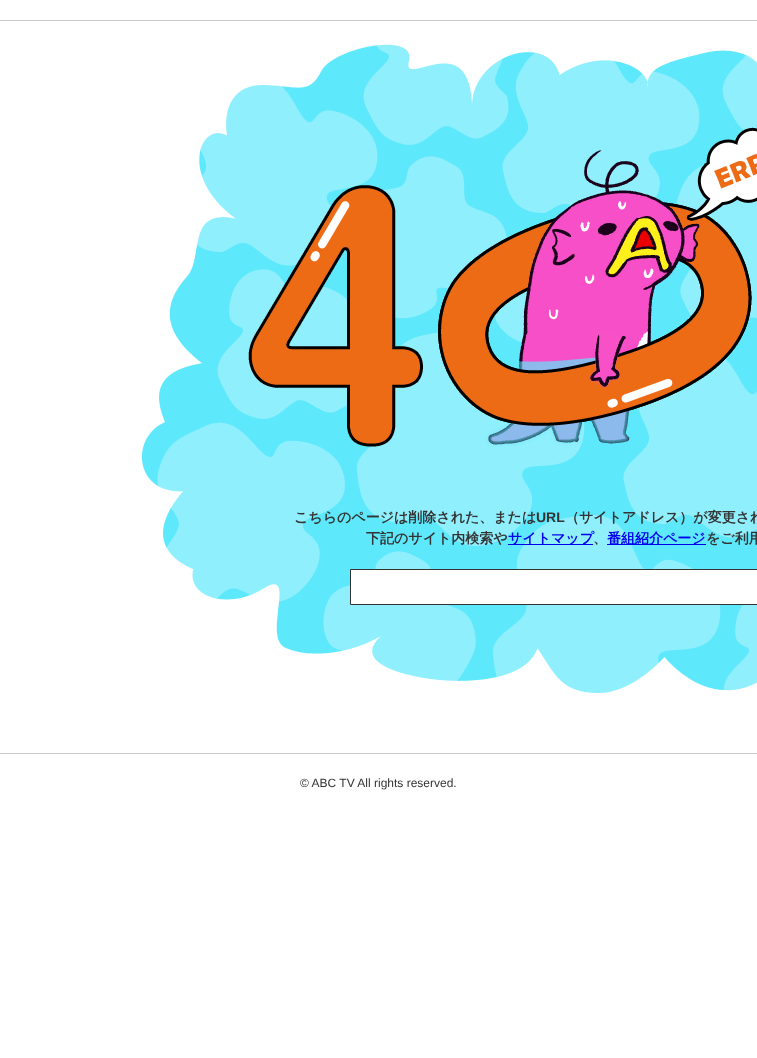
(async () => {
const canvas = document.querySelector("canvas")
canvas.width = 757
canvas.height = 1058
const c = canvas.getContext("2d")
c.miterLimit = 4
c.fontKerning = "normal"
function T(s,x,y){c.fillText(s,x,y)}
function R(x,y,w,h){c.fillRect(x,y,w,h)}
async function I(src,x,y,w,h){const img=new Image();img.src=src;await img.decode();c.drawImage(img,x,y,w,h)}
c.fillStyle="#fff"
R(0,0,757,1058)
c.fillStyle="#ccc"
R(0,20,757,1)
await I("1.png",142,44,615,649)
await I("2.png",248,127,509,320)
c.font="bold 14px WenQuanYi Zen Hei"
c.fillStyle="#333"
T("こちらのページは削除された、または",294,522)
c.font="bold 14px Liberation Sans"
T("URL",536,522)
c.font="bold 14px WenQuanYi Zen Hei"
T("（サイトアドレス）が変更され",565,522)
T("下記のサイト内検索や",366,543)
c.fillStyle="#00e"
R(508,544,85,1)
T("サイトマップ",508,543)
c.fillStyle="#333"
T("、",593,543)
c.fillStyle="#00e"
R(607,544,99,1)
T("番組紹介ページ",607,543)
c.fillStyle="#333"
T("をご利用",706,543)
c.fillStyle="#fff"
c.beginPath()
c.rect(350.5,569.5,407,35)
c.fill()
c.strokeStyle="#333"
c.stroke()
c.fillStyle="#ccc"
R(0,753,757,1)
c.font="12px Liberation Sans"
c.fillStyle="#333"
T("© ABC TV All rights reserved.",300,787)
})()
